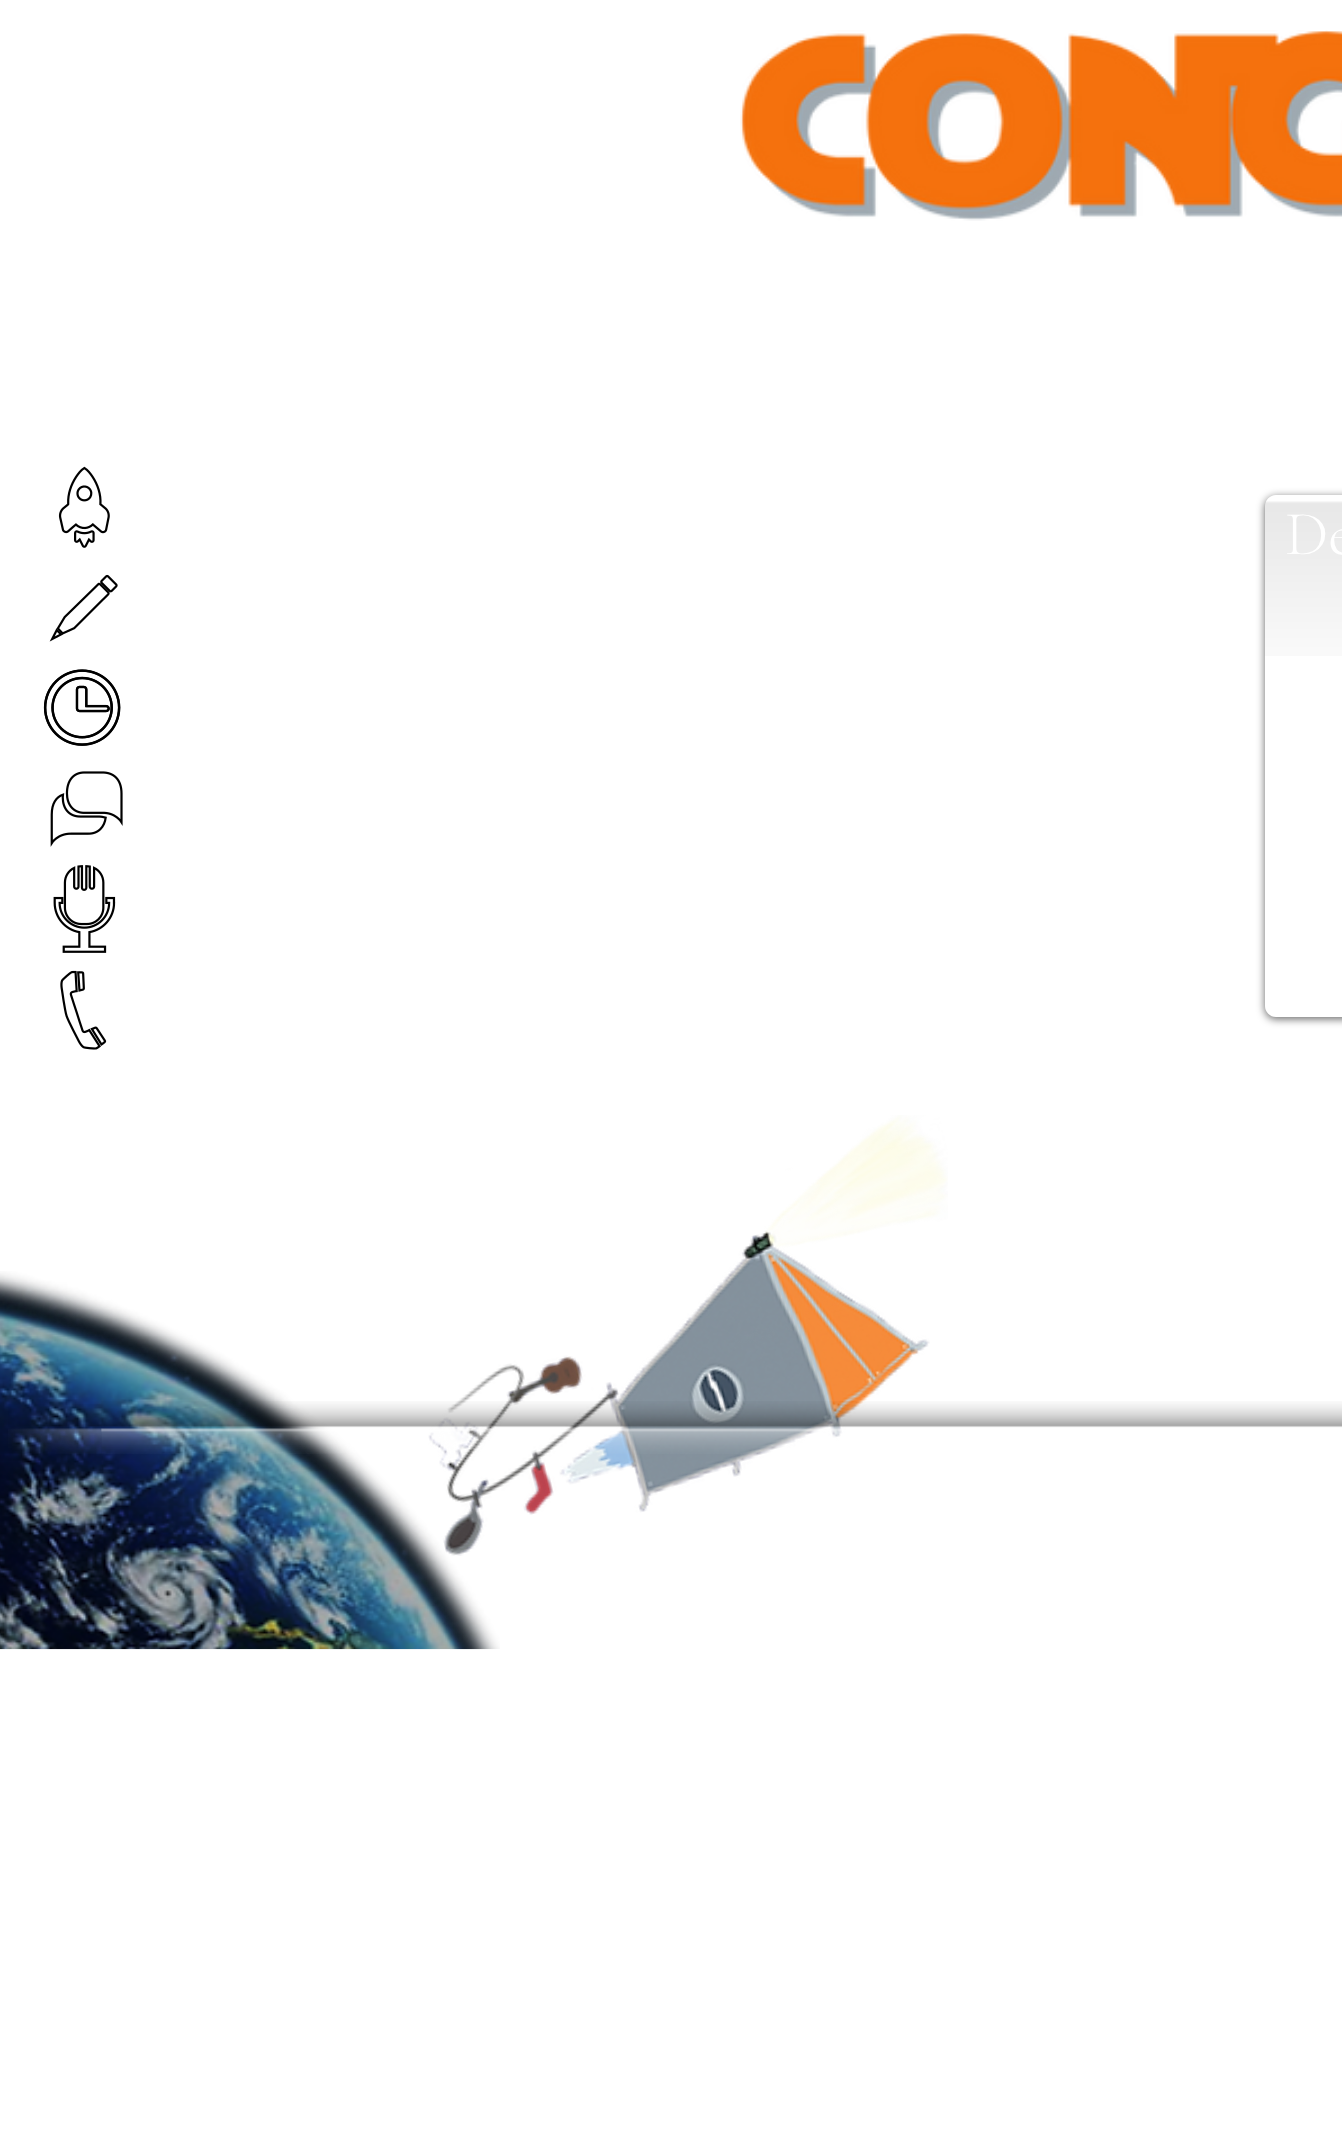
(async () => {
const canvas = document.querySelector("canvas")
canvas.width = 1342
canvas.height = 2152
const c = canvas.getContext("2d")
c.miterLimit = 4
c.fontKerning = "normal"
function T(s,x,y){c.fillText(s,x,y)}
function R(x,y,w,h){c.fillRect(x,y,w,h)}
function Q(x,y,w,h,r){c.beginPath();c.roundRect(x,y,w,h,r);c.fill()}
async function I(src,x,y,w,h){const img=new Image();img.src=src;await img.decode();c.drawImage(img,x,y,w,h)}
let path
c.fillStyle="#fff"
R(0,0,1342,2152)
await I("1.png",740,30,602,191)
await I("2.png",58,466,52,82)
c.save()
path = new Path2D("M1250 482h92v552h-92zm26 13h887c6 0 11 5 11 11v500c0 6-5 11-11 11h-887c-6 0-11-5-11-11v-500c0-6 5-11 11-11z")
c.clip(path,"evenodd")
c.fillStyle="#00000099"
c.filter="blur(4.5px)"
c.beginPath()
c.roundRect(1265,497,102,522,11)
c.fill()
c.filter="none"
c.restore()
c.fillStyle="#ffffff2e"
Q(1265,495,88,522,11)
await I("3.png",1264,501,78,155)
c.font="300 63px Cormorant Garamond"
c.fillStyle="#fff"
T("De",1285,554)
await I("4.png",49,574,69,68)
await I("5.png",43,669,78,77)
await I("6.png",50,771,73,76)
await I("7.png",53,865,63,88)
await I("8.png",60,970,47,80)
await I("10.png",428,1115,520,441)
await I("9.png",0,1271,500,379)
await I("11.png",101,1401,1241,53)
await I("12.png",8,1404,94,50)
})()
